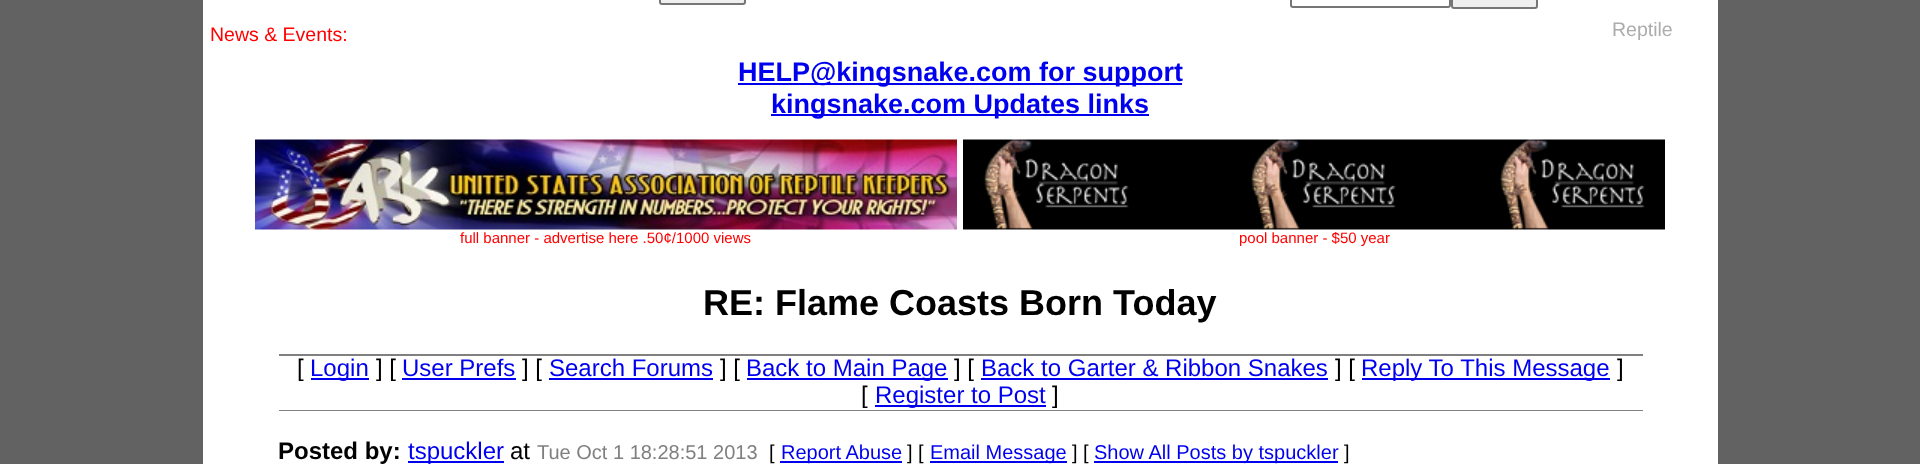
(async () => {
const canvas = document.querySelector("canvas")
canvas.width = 1920
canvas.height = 464
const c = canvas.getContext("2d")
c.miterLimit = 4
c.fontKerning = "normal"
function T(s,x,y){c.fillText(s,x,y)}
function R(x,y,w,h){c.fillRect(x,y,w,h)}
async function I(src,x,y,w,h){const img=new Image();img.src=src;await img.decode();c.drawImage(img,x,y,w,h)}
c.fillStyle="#626262"
R(0,0,1920,464)
c.fillStyle="#fff"
R(203,0,1515,464)
c.fillStyle="#efefef"
c.beginPath()
c.roundRect(660,-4,85,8,2)
c.fill()
c.strokeStyle="#767676"
c.lineWidth=2
c.stroke()
c.beginPath()
c.roundRect(1291,-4,159,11,2)
c.stroke()
c.beginPath()
c.roundRect(1452,-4,85,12,2)
c.fill()
c.stroke()
c.font="19.5px Liberation Sans"
c.fillStyle="#f00"
T("News & Events:",210,41)
c.fillStyle="#acacac"
T("Reptile",1612,36)
c.fillStyle="#00e"
R(738,83,444,2)
c.font="bold 27px Liberation Sans"
T("HELP@kingsnake.com for support",738,81)
R(771,114,378,2)
T("kingsnake.com Updates links",771,113)
await I("1.png",255,139,702,91)
c.font="15px Liberation Sans"
c.fillStyle="#f00"
T("full banner - advertise here .50¢/1000 views",460,243)
await I("2.png",963,139,702,91)
T("pool banner - $50 year",1239,243)
c.font="bold 36px Liberation Sans"
c.fillStyle="#000"
T("RE: Flame Coasts Born Today",703,315)
c.fillStyle="#808080"
R(279,354,1364,2)
c.font="24px Liberation Sans"
c.fillStyle="#000"
T("[",297,376)
c.fillStyle="#00e"
R(311,378,58,2)
T("Login",310,376)
c.fillStyle="#000"
T("] [",376,376)
c.fillStyle="#00e"
T("User Prefs",402,376)
R(402,378,114,2)
c.fillStyle="#000"
T("] [",522,376)
c.fillStyle="#00e"
T("Search Forums",549,376)
R(549,378,164,2)
c.fillStyle="#000"
T("] [",720,376)
c.fillStyle="#00e"
R(747,378,201,2)
T("Back to Main Page",746,376)
c.fillStyle="#000"
T("] [",954,376)
c.fillStyle="#00e"
T("Back to Garter & Ribbon Snakes",981,376)
R(981,378,347,2)
c.fillStyle="#000"
T("] [",1335,376)
c.fillStyle="#00e"
R(1362,378,248,2)
T("Reply To This Message",1361,376)
c.fillStyle="#000"
T("]",1617,376)
T("[",861,403)
c.fillStyle="#00e"
R(875,405,171,2)
T("Register to Post",875,403)
c.fillStyle="#000"
T("]",1052,403)
c.fillStyle="#808080"
R(279,410,1364,1)
c.font="bold 24px Liberation Sans"
c.fillStyle="#000"
T("Posted by:",278,459)
c.fillStyle="#00e"
R(408,461,96,2)
c.font="24px Liberation Sans"
T("tspuckler",408,459)
c.fillStyle="#000"
T("at",510,459)
c.font="20px Liberation Sans"
c.fillStyle="#808080"
T("Tue Oct 1 18:28:51 2013",537,459)
c.fillStyle="#000"
T("[",769,459)
c.fillStyle="#00e"
R(780,461,122,2)
T("Report Abuse",781,459)
c.fillStyle="#000"
T("] [",907,459)
c.fillStyle="#00e"
R(930,461,137,2)
T("Email Message",930,459)
c.fillStyle="#000"
T("] [",1072,459)
c.fillStyle="#00e"
R(1094,461,244,2)
T("Show All Posts by tspuckler",1094,459)
c.fillStyle="#000"
T("]",1344,459)
})()
